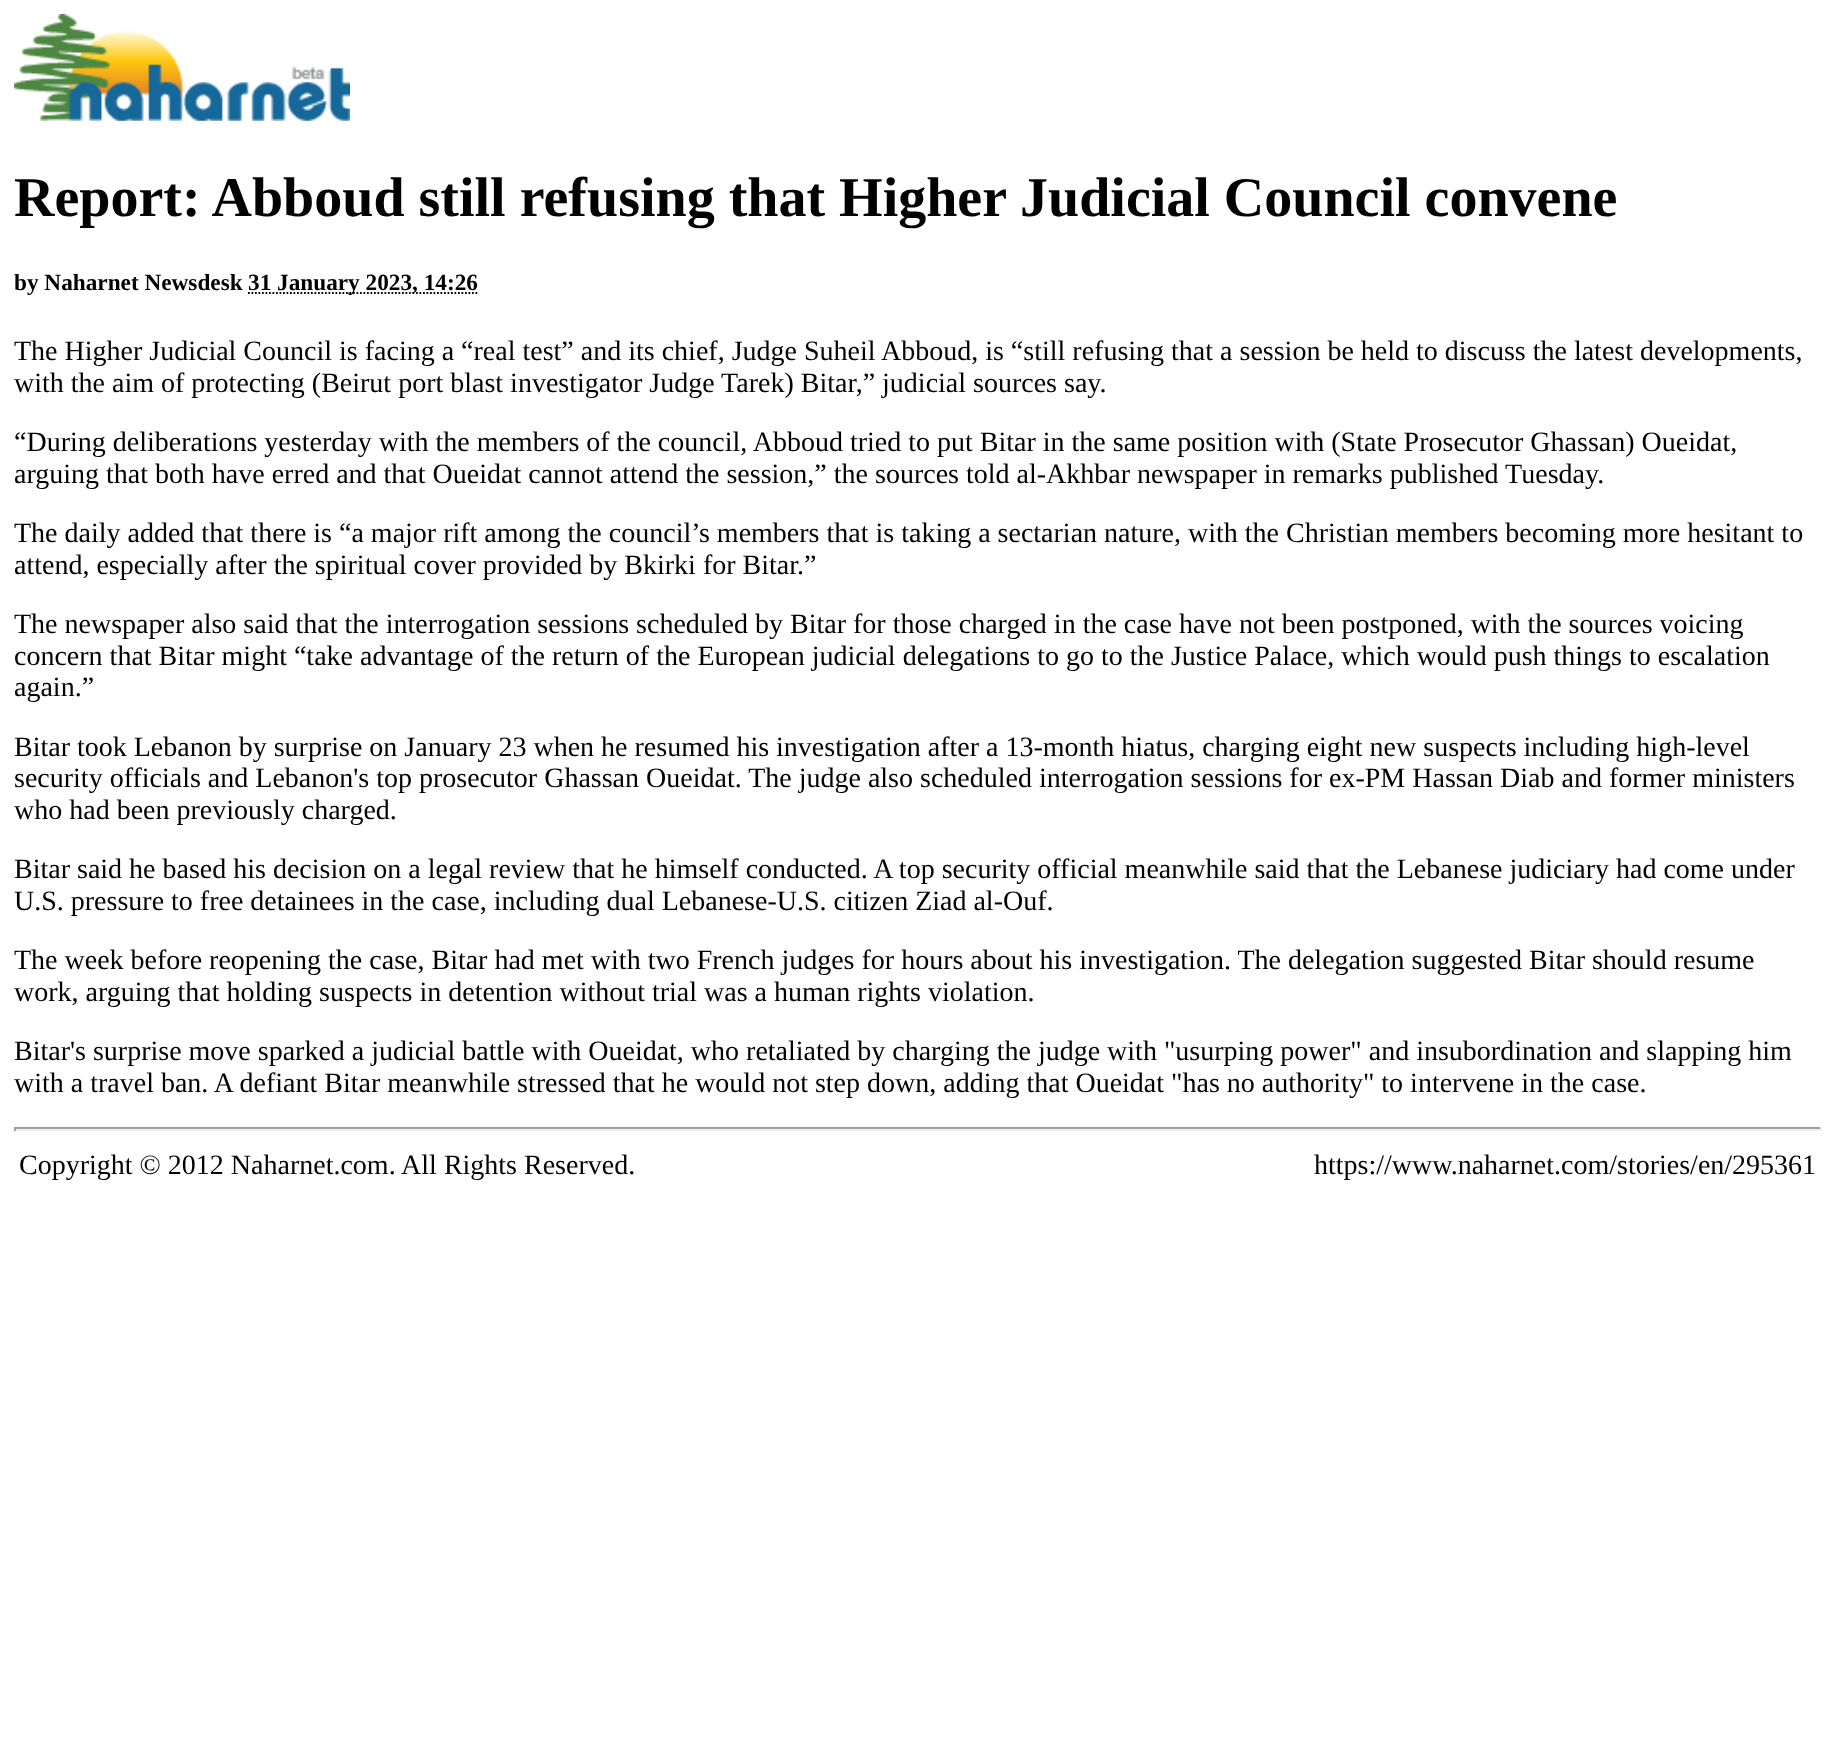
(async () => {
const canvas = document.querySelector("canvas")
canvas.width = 1835
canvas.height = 1746
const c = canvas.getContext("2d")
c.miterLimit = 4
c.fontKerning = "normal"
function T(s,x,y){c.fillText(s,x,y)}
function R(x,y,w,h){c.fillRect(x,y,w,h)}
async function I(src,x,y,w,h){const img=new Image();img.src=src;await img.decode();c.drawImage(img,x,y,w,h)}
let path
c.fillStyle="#fff"
R(0,0,1835,1746)
await I("1.png",14,14,336,107)
c.font="bold 56px Liberation Serif"
c.fillStyle="#000"
T("Report: Abboud still refusing that Higher Judicial Council convene",14,216)
c.font="bold 23.25px Liberation Serif"
T("by Naharnet Newsdesk",14,290)
path = new Path2D("M248 293h229.5")
c.strokeStyle="#000"
c.lineWidth=1.8
c.setLineDash([1.75,1.75])
c.stroke(path)
T("31 January 2023, 14:26",248,290)
c.font="28px Liberation Serif"
T("The Higher Judicial Council is facing a “real test” and its chief, Judge Suheil Abboud, is “still refusing that a session be held to discuss the latest developments,",14,360)
T("with the aim of protecting (Beirut port blast investigator Judge Tarek) Bitar,” judicial sources say.",14,392)
T("“During deliberations yesterday with the members of the council, Abboud tried to put Bitar in the same position with (State Prosecutor Ghassan) Oueidat,",14,451)
T("arguing that both have erred and that Oueidat cannot attend the session,” the sources told al-Akhbar newspaper in remarks published Tuesday.",14,483)
T("The daily added that there is “a major rift among the council’s members that is taking a sectarian nature, with the Christian members becoming more hesitant to",14,542)
T("attend, especially after the spiritual cover provided by Bkirki for Bitar.”",14,574)
T("The newspaper also said that the interrogation sessions scheduled by Bitar for those charged in the case have not been postponed, with the sources voicing",14,633)
T("concern that Bitar might “take advantage of the return of the European judicial delegations to go to the Justice Palace, which would push things to escalation",14,665)
T("again.”",14,696)
T("Bitar took Lebanon by surprise on January 23 when he resumed his investigation after a 13-month hiatus, charging eight new suspects including high-level",14,756)
T("security officials and Lebanon's top prosecutor Ghassan Oueidat. The judge also scheduled interrogation sessions for ex-PM Hassan Diab and former ministers",14,787)
T("who had been previously charged.",14,819)
T("Bitar said he based his decision on a legal review that he himself conducted. A top security official meanwhile said that the Lebanese judiciary had come under",14,878)
T("U.S. pressure to free detainees in the case, including dual Lebanese-U.S. citizen Ziad al-Ouf.",14,910)
T("The week before reopening the case, Bitar had met with two French judges for hours about his investigation. The delegation suggested Bitar should resume",14,969)
T("work, arguing that holding suspects in detention without trial was a human rights violation.",14,1001)
T("Bitar's surprise move sparked a judicial battle with Oueidat, who retaliated by charging the judge with \"usurping power\" and insubordination and slapping him",14,1060)
T("with a travel ban. A defiant Bitar meanwhile stressed that he would not step down, adding that Oueidat \"has no authority\" to intervene in the case.",14,1092)
c.fillStyle="#9f9f9f"
R(14,1127,1808,2)
c.fillStyle="#eee"
R(1820,1127,2,4)
R(14,1129,1808,2)
c.fillStyle="#9f9f9f"
R(14,1127,2,4)
c.fillStyle="#000"
T("Copyright © 2012 Naharnet.com. All Rights Reserved.",19,1174)
T("https://www.naharnet.com/stories/en/295361",1314,1174)
})()
